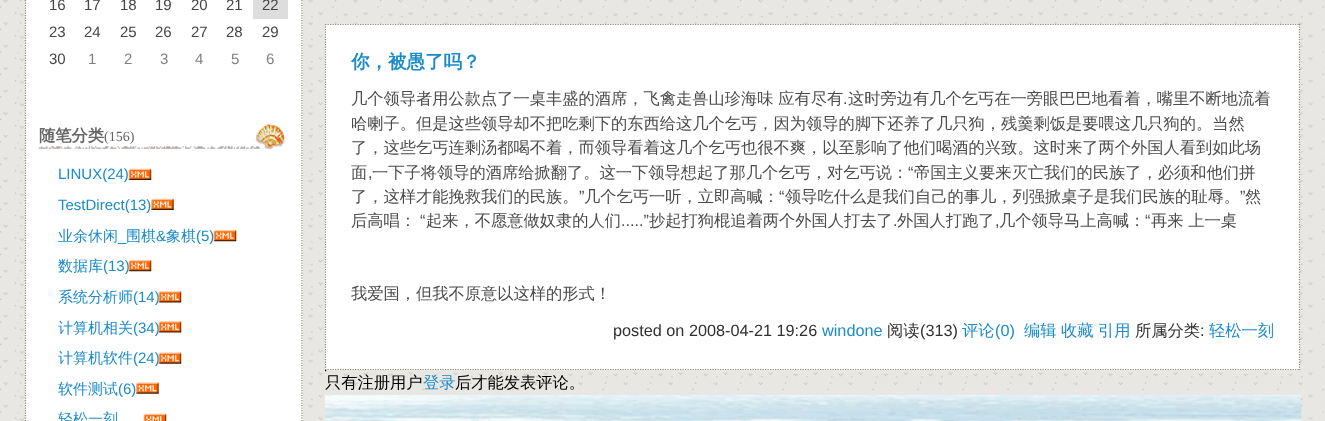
(async () => {
const canvas = document.querySelector("canvas")
canvas.width = 1325
canvas.height = 421
const c = canvas.getContext("2d")
c.miterLimit = 4
c.fontKerning = "normal"
function T(s,x,y){c.fillText(s,x,y)}
function R(x,y,w,h){c.fillRect(x,y,w,h)}
async function I(src,x,y,w,h){const img=new Image();img.src=src;await img.decode();c.drawImage(img,x,y,w,h)}
let path
c.fillStyle="#fff"
R(0,0,1325,421)
await I("1.png",0,0,1325,421)
R(25,0,278,421)
path = new Path2D("M302-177.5v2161.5")
c.strokeStyle="#8b8d72"
c.lineWidth=1.2
c.setLineDash([1.25,1.25])
c.stroke(path)
path = new Path2D("M25.5-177.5v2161.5")
c.stroke(path)
c.font="15px Liberation Sans"
c.fillStyle="#454545"
T("16",49,10)
T("17",84,10)
T("18",120,10)
T("19",155,10)
T("20",191,10)
T("21",226,10)
c.fillStyle="#ddd"
R(253,0,35,19)
c.fillStyle="#454545"
T("22",262,10)
T("23",49,37)
T("24",84,37)
T("25",120,37)
T("26",155,37)
T("27",191,37)
T("28",226,37)
T("29",262,37)
T("30",49,64)
c.fillStyle="#808080"
T("1",88,64)
T("2",124,64)
T("3",160,64)
T("4",195,64)
T("5",231,64)
T("6",266,64)
await I("2.png",38,123,247,27)
c.font="bold 16.25px WenQuanYi Zen Hei"
c.fillStyle="#666"
T("随笔分类",39,141)
c.font="14px Liberation Serif"
T("(156)",104,141)
c.font="15px Liberation Sans"
c.fillStyle="#1a8bc8"
T("LINUX(24)",58,179)
await I("3.png",128,168,24,12)
T("TestDirect(13)",58,210)
await I("4.png",151,198,23,12)
c.font="500 15px WenQuanYi Zen Hei"
T("业余休闲",58,241)
T("围棋",126,241)
c.font="15px Liberation Sans"
T("&",156,241)
c.font="500 15px WenQuanYi Zen Hei"
T("象棋",166,241)
c.font="15px Liberation Sans"
T("(5)",196,241)
await I("5.png",213,230,24,12)
T("_",118,241)
c.font="500 15px WenQuanYi Zen Hei"
T("数据库",58,271)
c.font="15px Liberation Sans"
T("(13)",103,271)
await I("6.png",128,260,24,12)
c.font="500 15px WenQuanYi Zen Hei"
T("系统分析师",58,302)
c.font="15px Liberation Sans"
T("(14)",133,302)
await I("7.png",158,291,24,12)
c.font="500 15px WenQuanYi Zen Hei"
T("计算机相关",58,333)
c.font="15px Liberation Sans"
T("(34)",133,333)
await I("8.png",158,321,24,12)
c.font="500 15px WenQuanYi Zen Hei"
T("计算机软件",58,363)
c.font="15px Liberation Sans"
T("(24)",133,363)
await I("9.png",158,352,24,12)
c.font="500 15px WenQuanYi Zen Hei"
T("软件测试",58,394)
c.font="15px Liberation Sans"
T("(6)",118,394)
await I("10.png",136,382,23,12)
c.font="500 15px WenQuanYi Zen Hei"
T("轻松一刻",58,424)
await I("11.png",143,413,24,8)
c.fillStyle="#fff"
R(325,24,975,346)
path = new Path2D("M325 24.5h975")
c.stroke(path)
path = new Path2D("M1299.5 24v346")
c.stroke(path)
path = new Path2D("M325 369.5h975")
c.stroke(path)
path = new Path2D("M325.5 24v346")
c.stroke(path)
c.font="bold 18.5px WenQuanYi Zen Hei"
c.fillStyle="#1a8bc8"
T("你，被愚了吗？",351,68)
c.font="500 16.25px WenQuanYi Zen Hei"
c.fillStyle="#4b4b4b"
T("几个领导者用公款点了一桌丰盛的酒席，飞禽走兽山珍海味 应有尽有",351,104)
c.font="16.25px Liberation Sans"
T(".",843,104)
c.font="500 16.25px WenQuanYi Zen Hei"
T("这时旁边有几个乞丐在一旁眼巴巴地看着，嘴里不断地流着",848,104)
T("哈喇子。但是这些领导却不把吃剩下的东西给这几个乞丐，因为领导的脚下还养了几只狗，残羹剩饭是要喂这几只狗的。当然",351,129)
T("了，这些乞丐连剩汤都喝不着，而领导看着这几个乞丐也很不爽，以至影响了他们喝酒的兴致。这时来了两个外国人看到如此场",351,153)
T("面",351,178)
T("一下子将领导的酒席给掀翻了。这一下领导想起了那几个乞丐，对乞丐说：",372,178)
c.font="16.25px Liberation Sans"
T("“",908,178)
c.font="500 16.25px WenQuanYi Zen Hei"
T("帝国主义要来灭亡我们的民族了，必须和他们拼",914,178)
c.font="16.25px Liberation Sans"
T(",",368,178)
c.font="500 16.25px WenQuanYi Zen Hei"
T("了，这样才能挽救我们的民族。",351,202)
c.font="16.25px Liberation Sans"
T("”",579,202)
c.font="500 16.25px WenQuanYi Zen Hei"
T("几个乞丐一听，立即高喊：",584,202)
c.font="16.25px Liberation Sans"
T("“",779,202)
c.font="500 16.25px WenQuanYi Zen Hei"
T("领导吃什么是我们自己的事儿，列强掀桌子是我们民族的耻辱。",785,202)
c.font="16.25px Liberation Sans"
T("”",1240,202)
c.font="500 16.25px WenQuanYi Zen Hei"
T("然",1245,202)
T("后高唱：",351,226)
c.font="16.25px Liberation Sans"
T("“",420,226)
c.font="500 16.25px WenQuanYi Zen Hei"
T("起来，不愿意做奴隶的人们",426,226)
c.font="16.25px Liberation Sans"
T(".....”",621,226)
c.font="500 16.25px WenQuanYi Zen Hei"
T("抄起打狗棍追着两个外国人打去了",649,226)
T("外国人打跑了",897,226)
T("几个领导马上高喊：",999,226)
c.font="16.25px Liberation Sans"
T("“",1145,226)
c.font="500 16.25px WenQuanYi Zen Hei"
T("再来 上一桌",1151,226)
c.font="16.25px Liberation Sans"
T(".",893,226)
T(",",995,226)
c.font="500 16.25px WenQuanYi Zen Hei"
T("我爱国，但我不原意以这样的形式！",351,299)
c.font="16.25px Liberation Sans"
c.fillStyle="#303030"
T("posted on 2008-04-21 19:26",613,336)
c.fillStyle="#1a8bc8"
T("windone",822,336)
c.font="500 16.25px WenQuanYi Zen Hei"
c.fillStyle="#303030"
T("阅读",887,336)
c.font="16.25px Liberation Sans"
T("(313)",920,336)
c.font="500 16.25px WenQuanYi Zen Hei"
c.fillStyle="#1a8bc8"
T("评论",962,336)
c.font="16.25px Liberation Sans"
T("(0)",995,336)
c.font="500 16.25px WenQuanYi Zen Hei"
T("编辑",1024,336)
T("收藏",1061,336)
T("引用",1098,336)
c.fillStyle="#303030"
T("所属分类",1135,336)
c.font="16.25px Liberation Sans"
T(":",1200,336)
c.font="500 16.25px WenQuanYi Zen Hei"
c.fillStyle="#1a8bc8"
T("轻松一刻",1209,336)
await I("12.png",325,370,2,2)
c.fillStyle="#000"
T("只有注册用户",325,388)
c.fillStyle="#1a8bc8"
T("登录",423,388)
c.fillStyle="#000"
T("后才能发表评论。",455,388)
await I("13.png",325,395,977,26)
})()
